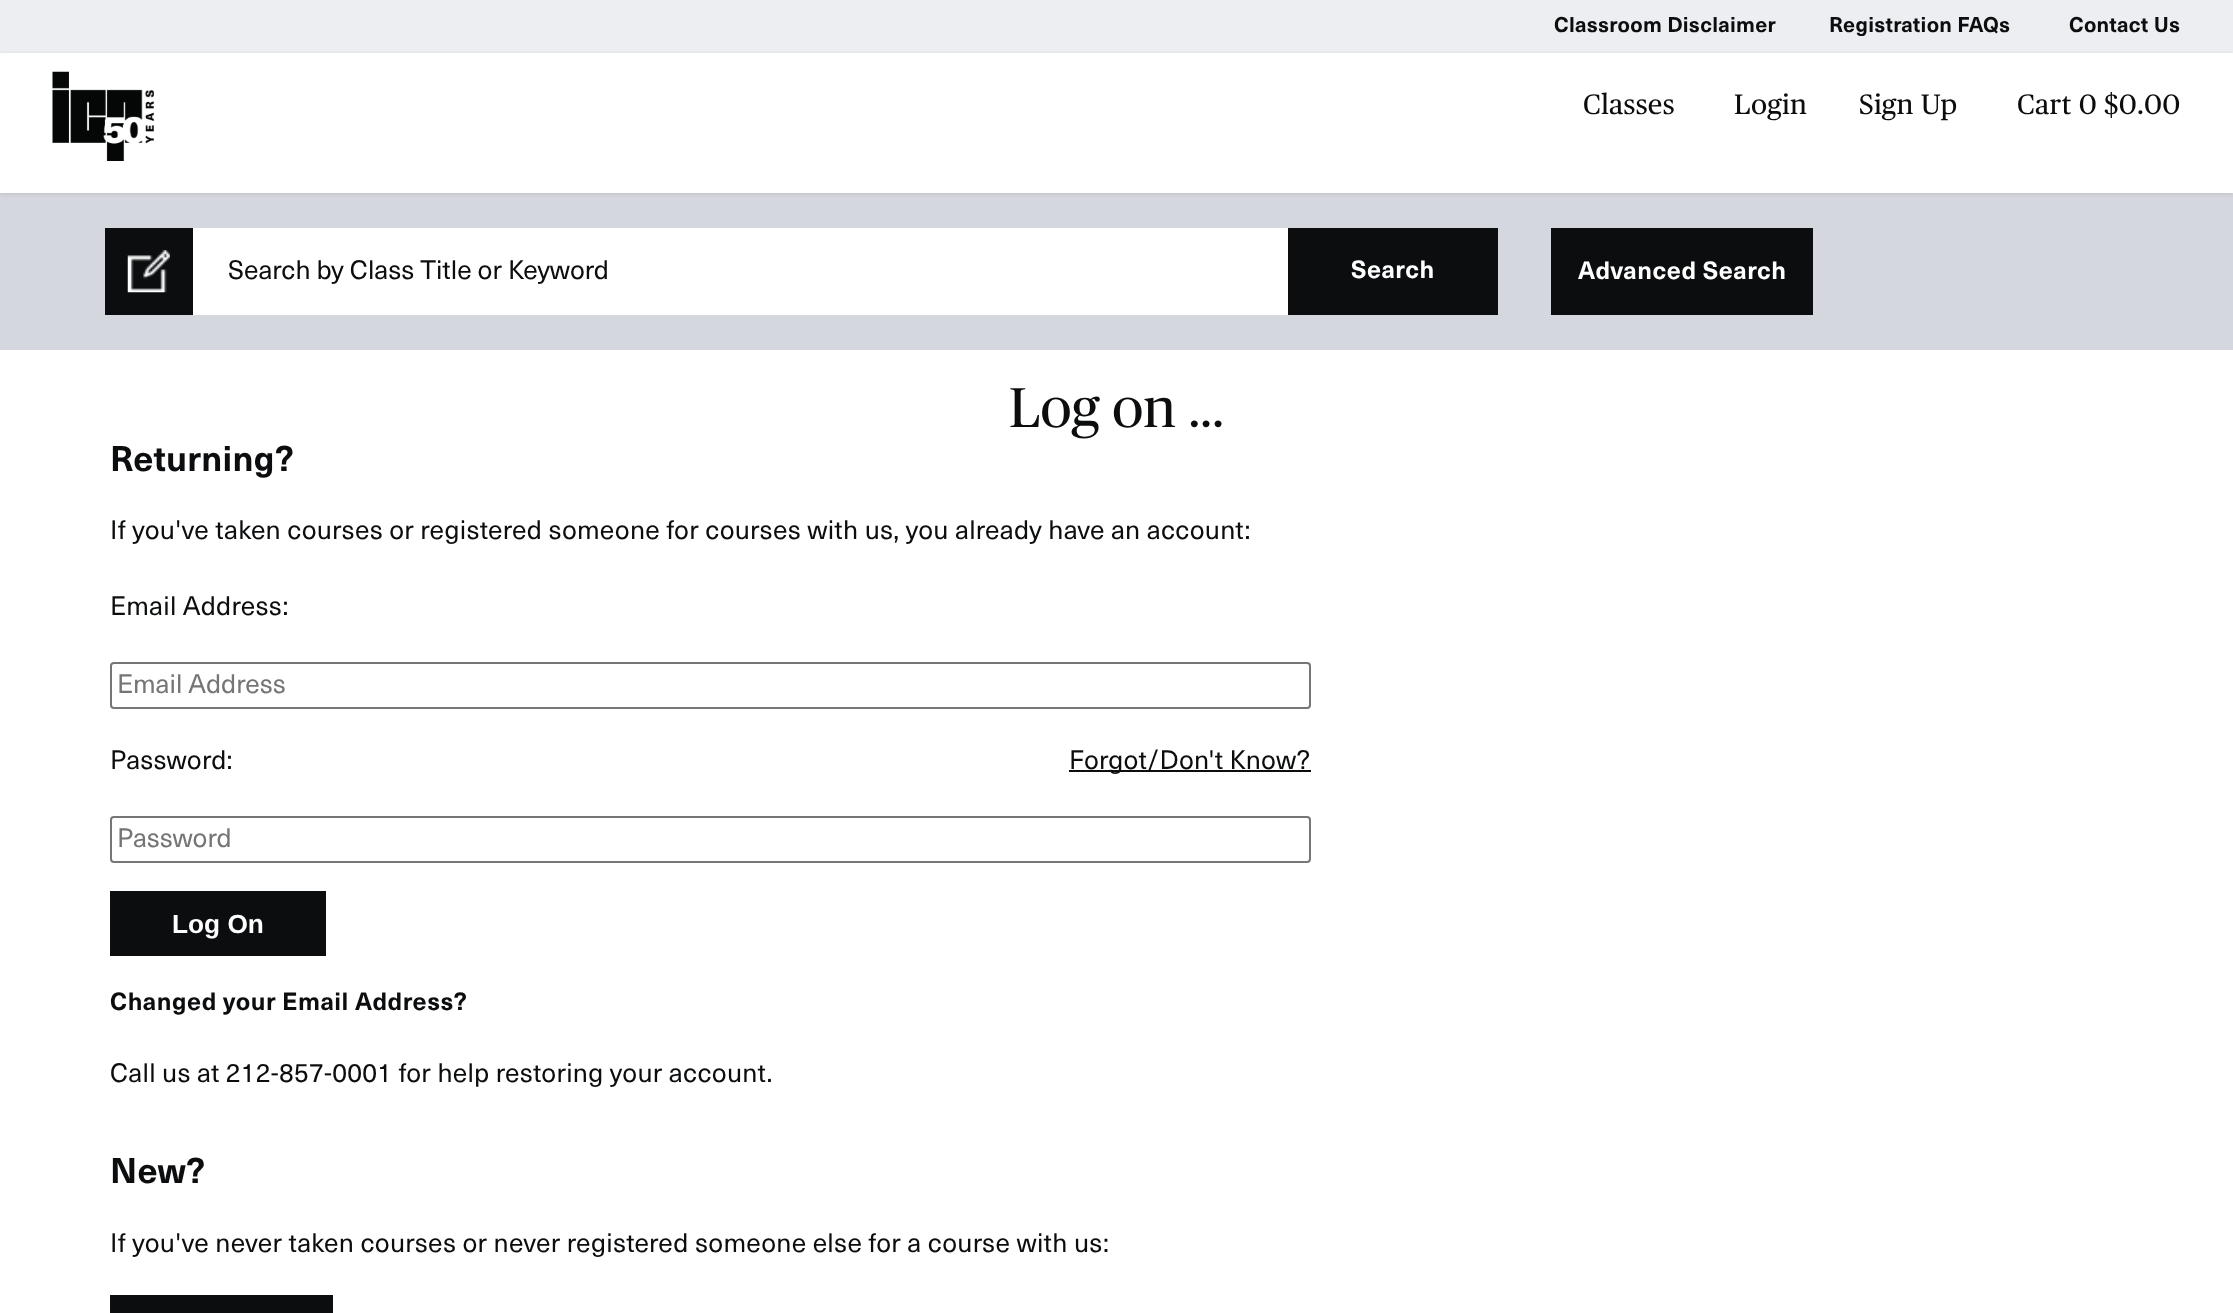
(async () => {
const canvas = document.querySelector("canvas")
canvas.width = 2233
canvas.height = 1313
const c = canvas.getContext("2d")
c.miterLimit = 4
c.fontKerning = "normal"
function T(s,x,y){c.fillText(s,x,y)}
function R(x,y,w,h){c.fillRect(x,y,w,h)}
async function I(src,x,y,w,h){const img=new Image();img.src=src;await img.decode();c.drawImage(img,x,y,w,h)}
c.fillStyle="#edeef1"
R(0,0,2233,1313)
c.letterSpacing="0.25px"
c.font="21px 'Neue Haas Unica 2'"
c.fillStyle="#0b0d0f"
T("Classroom Disclaimer",1554,32)
T("Registration FAQs",1829,32)
T("Contact Us",2069,32)
c.fillStyle="#d4d7dd"
R(0,193,2233,157)
c.fillStyle="#0000001a"
c.filter="blur(2px)"
c.beginPath()
c.rect(0,54,2233,140)
c.fill()
c.filter="none"
c.fillStyle="#fff"
R(0,53,2233,140)
await I("1.png",52,71,102,90)
c.font="28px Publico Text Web"
c.fillStyle="#0b0d0f"
T("Classes",1583,114)
T("Login",1734,114)
T("Sign Up",1859,114)
T("Cart 0 $0.00",2017,114)
c.fillStyle="#fff"
R(193,228,1095,87)
c.fillStyle="#0b0d0f"
R(105,228,88,87)
await I("2.png",127,250,43,43)
c.letterSpacing="0px"
c.font="26.25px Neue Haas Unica"
T("Search by Class Title or Keyword",228,279)
R(1288,228,210,87)
c.letterSpacing="0.5px"
c.font="24.5px 'Neue Haas Unica 2'"
c.fillStyle="#fff"
T("Search",1351,278)
c.fillStyle="#0b0d0f"
R(1551,228,262,87)
c.fillStyle="#fff"
T("Advanced Search",1578,279)
R(0,350,2233,963)
c.letterSpacing="0.25px"
c.font="56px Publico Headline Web"
c.fillStyle="#0b0d0f"
T("Log on ...",1009,427)
c.font="35px 'Neue Haas Unica 2'"
T("Returning?",110,471)
c.font="26.25px Neue Haas Unica"
T("If you've taken courses or registered someone for courses with us, you already have an account:",110,539)
T("Email Address:",110,615)
c.beginPath()
c.roundRect(111,663,1199,45,3)
c.strokeStyle="#767676"
c.lineWidth=2
c.stroke()
c.letterSpacing="0px"
c.fillStyle="#757575"
T("Email Address",117,693)
c.letterSpacing="0.25px"
c.fillStyle="#0b0d0f"
T("Password:",110,769)
R(1069,770,242,2)
T("Forgot/Don't Know?",1069,769)
c.beginPath()
c.roundRect(111,817,1199,45,3)
c.stroke()
c.letterSpacing="0px"
c.fillStyle="#757575"
T("Password",117,847)
c.fillStyle="#0b0d0f"
R(110,891,216,65)
c.font="bold 26.25px Liberation Sans"
c.fillStyle="#fff"
T("Log On",172,933)
c.letterSpacing="0.5px"
c.font="24.5px 'Neue Haas Unica 2'"
c.fillStyle="#0b0d0f"
T("Changed your Email Address?",110,1010)
c.letterSpacing="0.25px"
c.font="26.25px Neue Haas Unica"
T("Call us at 212-857-0001 for help restoring your account.",110,1082)
c.font="35px 'Neue Haas Unica 2'"
T("New?",110,1183)
c.font="26.25px Neue Haas Unica"
T("If you've never taken courses or never registered someone else for a course with us:",110,1252)
R(110,1295,223,18)
})()
